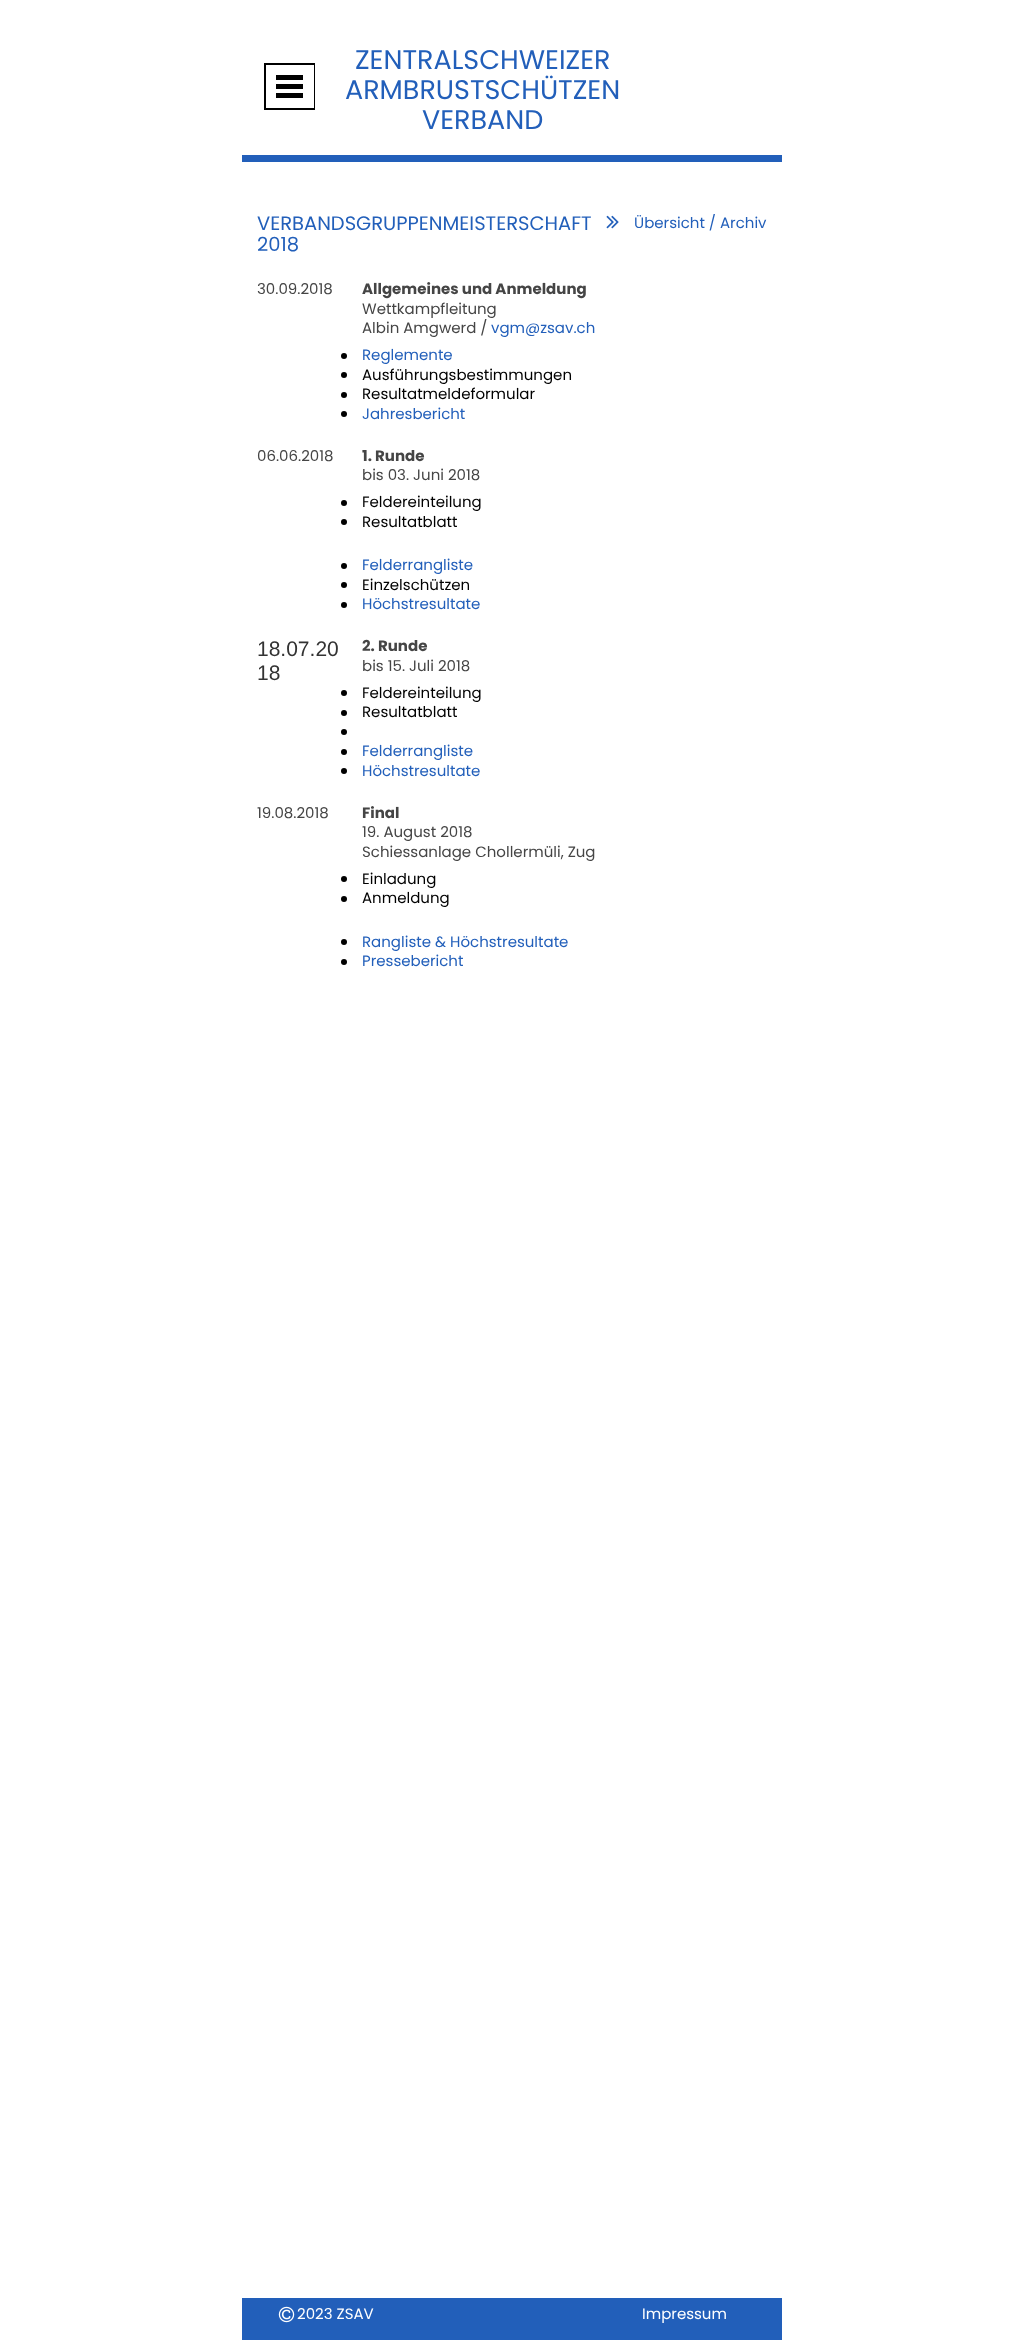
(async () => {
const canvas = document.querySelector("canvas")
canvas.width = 1022
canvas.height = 2340
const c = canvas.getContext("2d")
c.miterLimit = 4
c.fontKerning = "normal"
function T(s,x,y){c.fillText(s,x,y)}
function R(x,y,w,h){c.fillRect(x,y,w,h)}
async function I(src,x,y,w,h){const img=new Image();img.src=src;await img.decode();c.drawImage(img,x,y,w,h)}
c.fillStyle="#fff"
R(0,0,1022,2340)
c.strokeStyle="#000"
c.lineWidth=2
c.strokeRect(265,64,49,45)
R(313,65,1,43)
c.fillStyle="#000"
R(276,75,27,5)
R(276,84,27,5)
R(276,93,27,5)
c.font="27px Poppins"
c.fillStyle="#225fba"
T("ZENTRALSCHWEIZER",355,69)
T("ARMBRUSTSCHÜTZEN",345,99)
T("VERBAND",422,129)
R(242,155,540,7)
c.font="19.5px Poppins"
T("VERBANDSGRUPPENMEISTERSCHAFT",257,230)
T("2018",257,251)
await I("1.png",606,215,13,14)
c.font="15px Poppins"
T("Übersicht / Archiv",634,228)
c.fillStyle="#454545"
T("30.09.2018",257,294)
c.font="bold 15px Poppins"
T("Allgemeines und Anmeldung",362,294)
c.font="15px Poppins"
T("Wettkampfleitung",362,314)
T("Albin Amgwerd /",362,333)
c.fillStyle="#225fba"
T("vgm@zsav.ch",491,333)
c.fillStyle="#000"
c.beginPath()
c.arc(344,356,3,0,7)
c.fill()
c.fillStyle="#225fba"
T("Reglemente",362,360)
c.fillStyle="#000"
c.beginPath()
c.arc(344,375,3,0,7)
c.fill()
T("Ausführungsbestimmungen",362,380)
c.beginPath()
c.arc(344,395,3,0,7)
c.fill()
T("Resultatmeldeformular",362,399)
c.beginPath()
c.arc(344,414,3,0,7)
c.fill()
c.fillStyle="#225fba"
T("Jahresbericht",362,419)
c.fillStyle="#454545"
T("06.06.2018",257,461)
c.font="bold 15px Poppins"
T("1. Runde",362,461)
c.font="15px Poppins"
T("bis 03. Juni 2018",362,480)
c.fillStyle="#000"
c.beginPath()
c.arc(344,503,3,0,7)
c.fill()
T("Feldereinteilung",362,507)
c.beginPath()
c.arc(344,522,3,0,7)
c.fill()
T("Resultatblatt",362,527)
c.beginPath()
c.arc(344,566,3,0,7)
c.fill()
c.fillStyle="#225fba"
T("Felderrangliste",362,570)
c.fillStyle="#000"
c.beginPath()
c.arc(344,585,3,0,7)
c.fill()
T("Einzelschützen",362,590)
c.beginPath()
c.arc(344,605,3,0,7)
c.fill()
c.fillStyle="#225fba"
T("Höchstresultate",362,609)
c.font="21px Liberation Sans"
c.fillStyle="#333"
T("18.07.20",257,656)
T("18",257,680)
c.font="bold 15px Poppins"
c.fillStyle="#454545"
T("2. Runde",362,651)
c.font="15px Poppins"
T("bis 15. Juli 2018",362,671)
c.fillStyle="#000"
c.beginPath()
c.arc(344,693,3,0,7)
c.fill()
T("Feldereinteilung",362,698)
c.beginPath()
c.arc(344,713,3,0,7)
c.fill()
T("Resultatblatt",362,717)
c.beginPath()
c.arc(344,732,3,0,7)
c.fill()
c.beginPath()
c.arc(344,752,3,0,7)
c.fill()
c.fillStyle="#225fba"
T("Felderrangliste",362,756)
c.fillStyle="#000"
c.beginPath()
c.arc(344,771,3,0,7)
c.fill()
c.fillStyle="#225fba"
T("Höchstresultate",362,776)
c.fillStyle="#454545"
T("19.08.2018",257,818)
c.font="bold 15px Poppins"
T("Final",362,818)
c.font="15px Poppins"
T("19. August 2018",362,837)
T("Schiessanlage Chollermüli, Zug",362,857)
c.fillStyle="#000"
c.beginPath()
c.arc(344,879,3,0,7)
c.fill()
T("Einladung",362,884)
c.beginPath()
c.arc(344,899,3,0,7)
c.fill()
T("Anmeldung",362,903)
c.beginPath()
c.arc(344,942,3,0,7)
c.fill()
c.fillStyle="#225fba"
T("Rangliste & Höchstresultate",362,947)
c.fillStyle="#000"
c.beginPath()
c.arc(344,962,3,0,7)
c.fill()
c.fillStyle="#225fba"
T("Pressebericht",362,966)
R(242,2298,540,42)
await I("2.png",278,2306,17,17)
c.fillStyle="#fff"
T("2023 ZSAV",297,2319)
T("Impressum",642,2319)
})()
